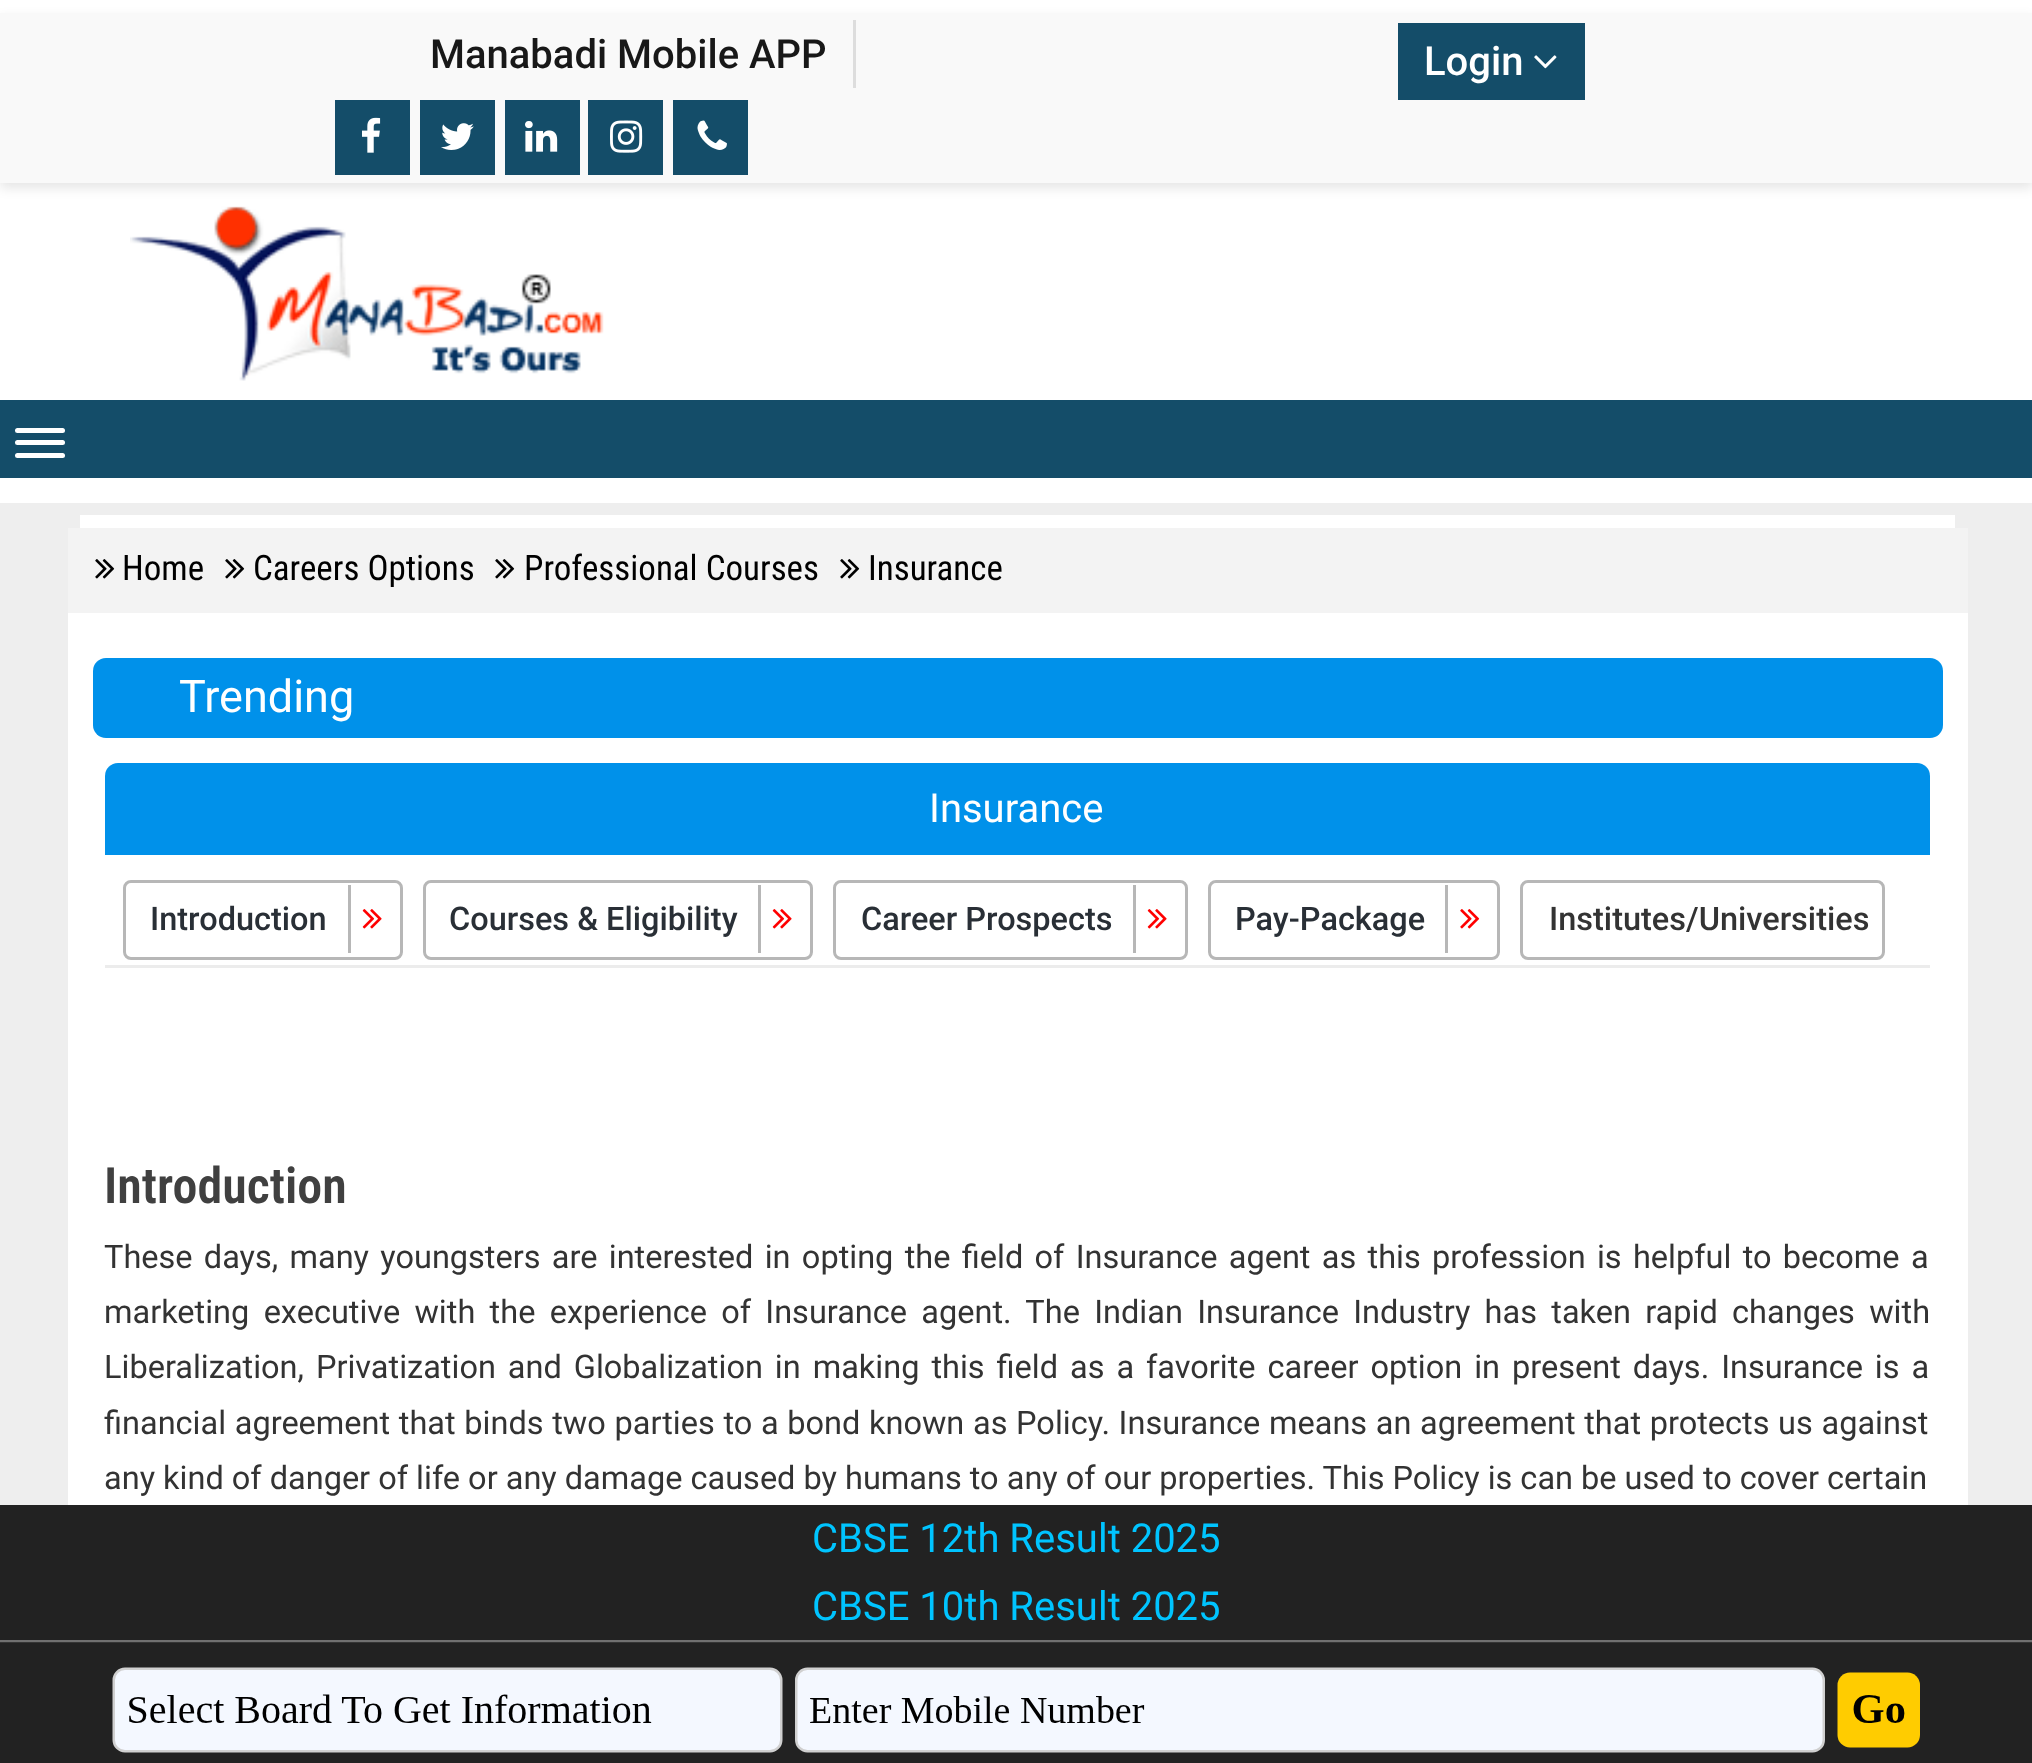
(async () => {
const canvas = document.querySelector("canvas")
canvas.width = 2032
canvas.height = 1763
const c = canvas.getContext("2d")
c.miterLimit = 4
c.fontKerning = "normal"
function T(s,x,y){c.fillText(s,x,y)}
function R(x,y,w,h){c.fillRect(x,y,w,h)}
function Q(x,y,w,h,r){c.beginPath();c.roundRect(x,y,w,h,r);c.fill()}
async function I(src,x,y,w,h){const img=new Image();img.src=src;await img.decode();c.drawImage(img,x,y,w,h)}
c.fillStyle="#eee"
R(0,0,2032,1763)
c.fillStyle="#fff"
R(0,0,2032,503)
c.fillStyle="#0000001a"
c.filter="blur(6px)"
c.beginPath()
c.rect(0,18,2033,170)
c.fill()
c.filter="none"
c.fillStyle="#f9f9f9"
R(0,13,2032,170)
c.fillStyle="#ddd"
R(853,20,3,68)
c.font="500 40px Roboto"
c.fillStyle="#181818"
T("Manabadi Mobile APP",430,68)
c.fillStyle="#144d69"
R(1398,23,187,77)
c.fillStyle="#fff"
T("Login",1424,75)
await I("1.png",1534,55,23,14)
c.fillStyle="#144d69"
R(335,100,75,75)
await I("2.png",362,117,19,36)
R(420,100,75,75)
await I("3.png",441,123,33,27)
R(505,100,75,75)
await I("4.png",525,121,33,31)
R(588,100,75,75)
await I("5.png",610,120,33,33)
R(673,100,75,75)
await I("6.png",697,120,30,30)
await I("7.png",130,206,474,175)
R(0,400,2032,78)
c.fillStyle="#fff"
Q(15,428,50,5,2.5)
Q(15,440,50,5,2.5)
Q(15,453,50,5,2.5)
R(80,515,1875,13)
R(68,613,1900,892)
c.fillStyle="#f3f3f3"
R(68,528,1900,85)
await I("8.png",95,559,20,20)
c.font="35px Roboto Condensed"
c.fillStyle="#000"
T("Home",122,580)
await I("8.png",225,559,20,20)
T("Careers Options",253,580)
await I("8.png",495,559,20,20)
T("Professional Courses",524,580)
await I("8.png",840,559,20,20)
T("Insurance",868,580)
c.fillStyle="#0091ea"
Q(93,658,1850,80,13)
c.font="45px Roboto"
c.fillStyle="#fff"
T("Trending",179,712)
c.fillStyle="#0091ea"
c.beginPath()
c.roundRect(105,763,1825,92,[13,13,0,0])
c.fill()
c.font="40px Roboto"
c.fillStyle="#fff"
T("Insurance",929,822)
c.fillStyle="#ececec"
R(105,965,1825,3)
c.beginPath()
c.roundRect(124.5,881.5,277,77,6.5)
c.strokeStyle="#b7b7b7"
c.lineWidth=3
c.stroke()
c.font="500 32.5px Roboto"
c.fillStyle="#292f36"
T("Introduction",150,930)
c.fillStyle="#b7b7b7"
R(348,885,3,68)
await I("9.png",362,909,20,20)
c.beginPath()
c.roundRect(424.5,881.5,387,77,6.5)
c.stroke()
c.fillStyle="#292f36"
T("Courses & Eligibility",449,930)
c.fillStyle="#b7b7b7"
R(758,885,3,68)
await I("9.png",772,909,20,20)
c.beginPath()
c.roundRect(834.5,881.5,352,77,6.5)
c.stroke()
c.fillStyle="#292f36"
T("Career Prospects",861,930)
c.fillStyle="#b7b7b7"
R(1133,885,3,68)
await I("9.png",1147,909,20,20)
c.beginPath()
c.roundRect(1209.5,881.5,289,77,6.5)
c.stroke()
c.fillStyle="#292f36"
T("Pay-Package",1235,930)
c.fillStyle="#b7b7b7"
R(1445,885,3,68)
await I("10.png",1460,909,20,20)
c.beginPath()
c.roundRect(1521.5,881.5,362,77,6.5)
c.stroke()
c.fillStyle="#333"
T("Institutes/Universities",1549,930)
c.font="600 50px Roboto Condensed"
c.fillStyle="#404040"
T("Introduction",104,1203)
c.wordSpacing="3.25px"
c.font="32.5px Roboto"
c.fillStyle="#333"
T("These days, many youngsters are interested in opting the field of Insurance agent as this profession is helpful to become a",104,1268)
c.wordSpacing="6.25px"
T("marketing executive with the experience of Insurance agent. The Indian Insurance Industry has taken rapid changes with",104,1323)
c.wordSpacing="3.9px"
T("Liberalization, Privatization and Globalization in making this field as a favorite career option in present days. Insurance is a",104,1378)
c.wordSpacing="0.6px"
T("financial agreement that binds two parties to a bond known as Policy. Insurance means an agreement that protects us against",104,1434)
c.wordSpacing="0px"
T("any kind of danger of life or any damage caused by humans to any of our properties. This Policy is can be used to cover certain",104,1489)
c.fillStyle="#222"
R(0,1505,2032,135)
c.font="40px Roboto"
c.fillStyle="#00c4ff"
T("CBSE 12th Result 2025",812,1552)
T("CBSE 10th Result 2025",812,1620)
await I("11.png",0,1640,2032,123)
})()
